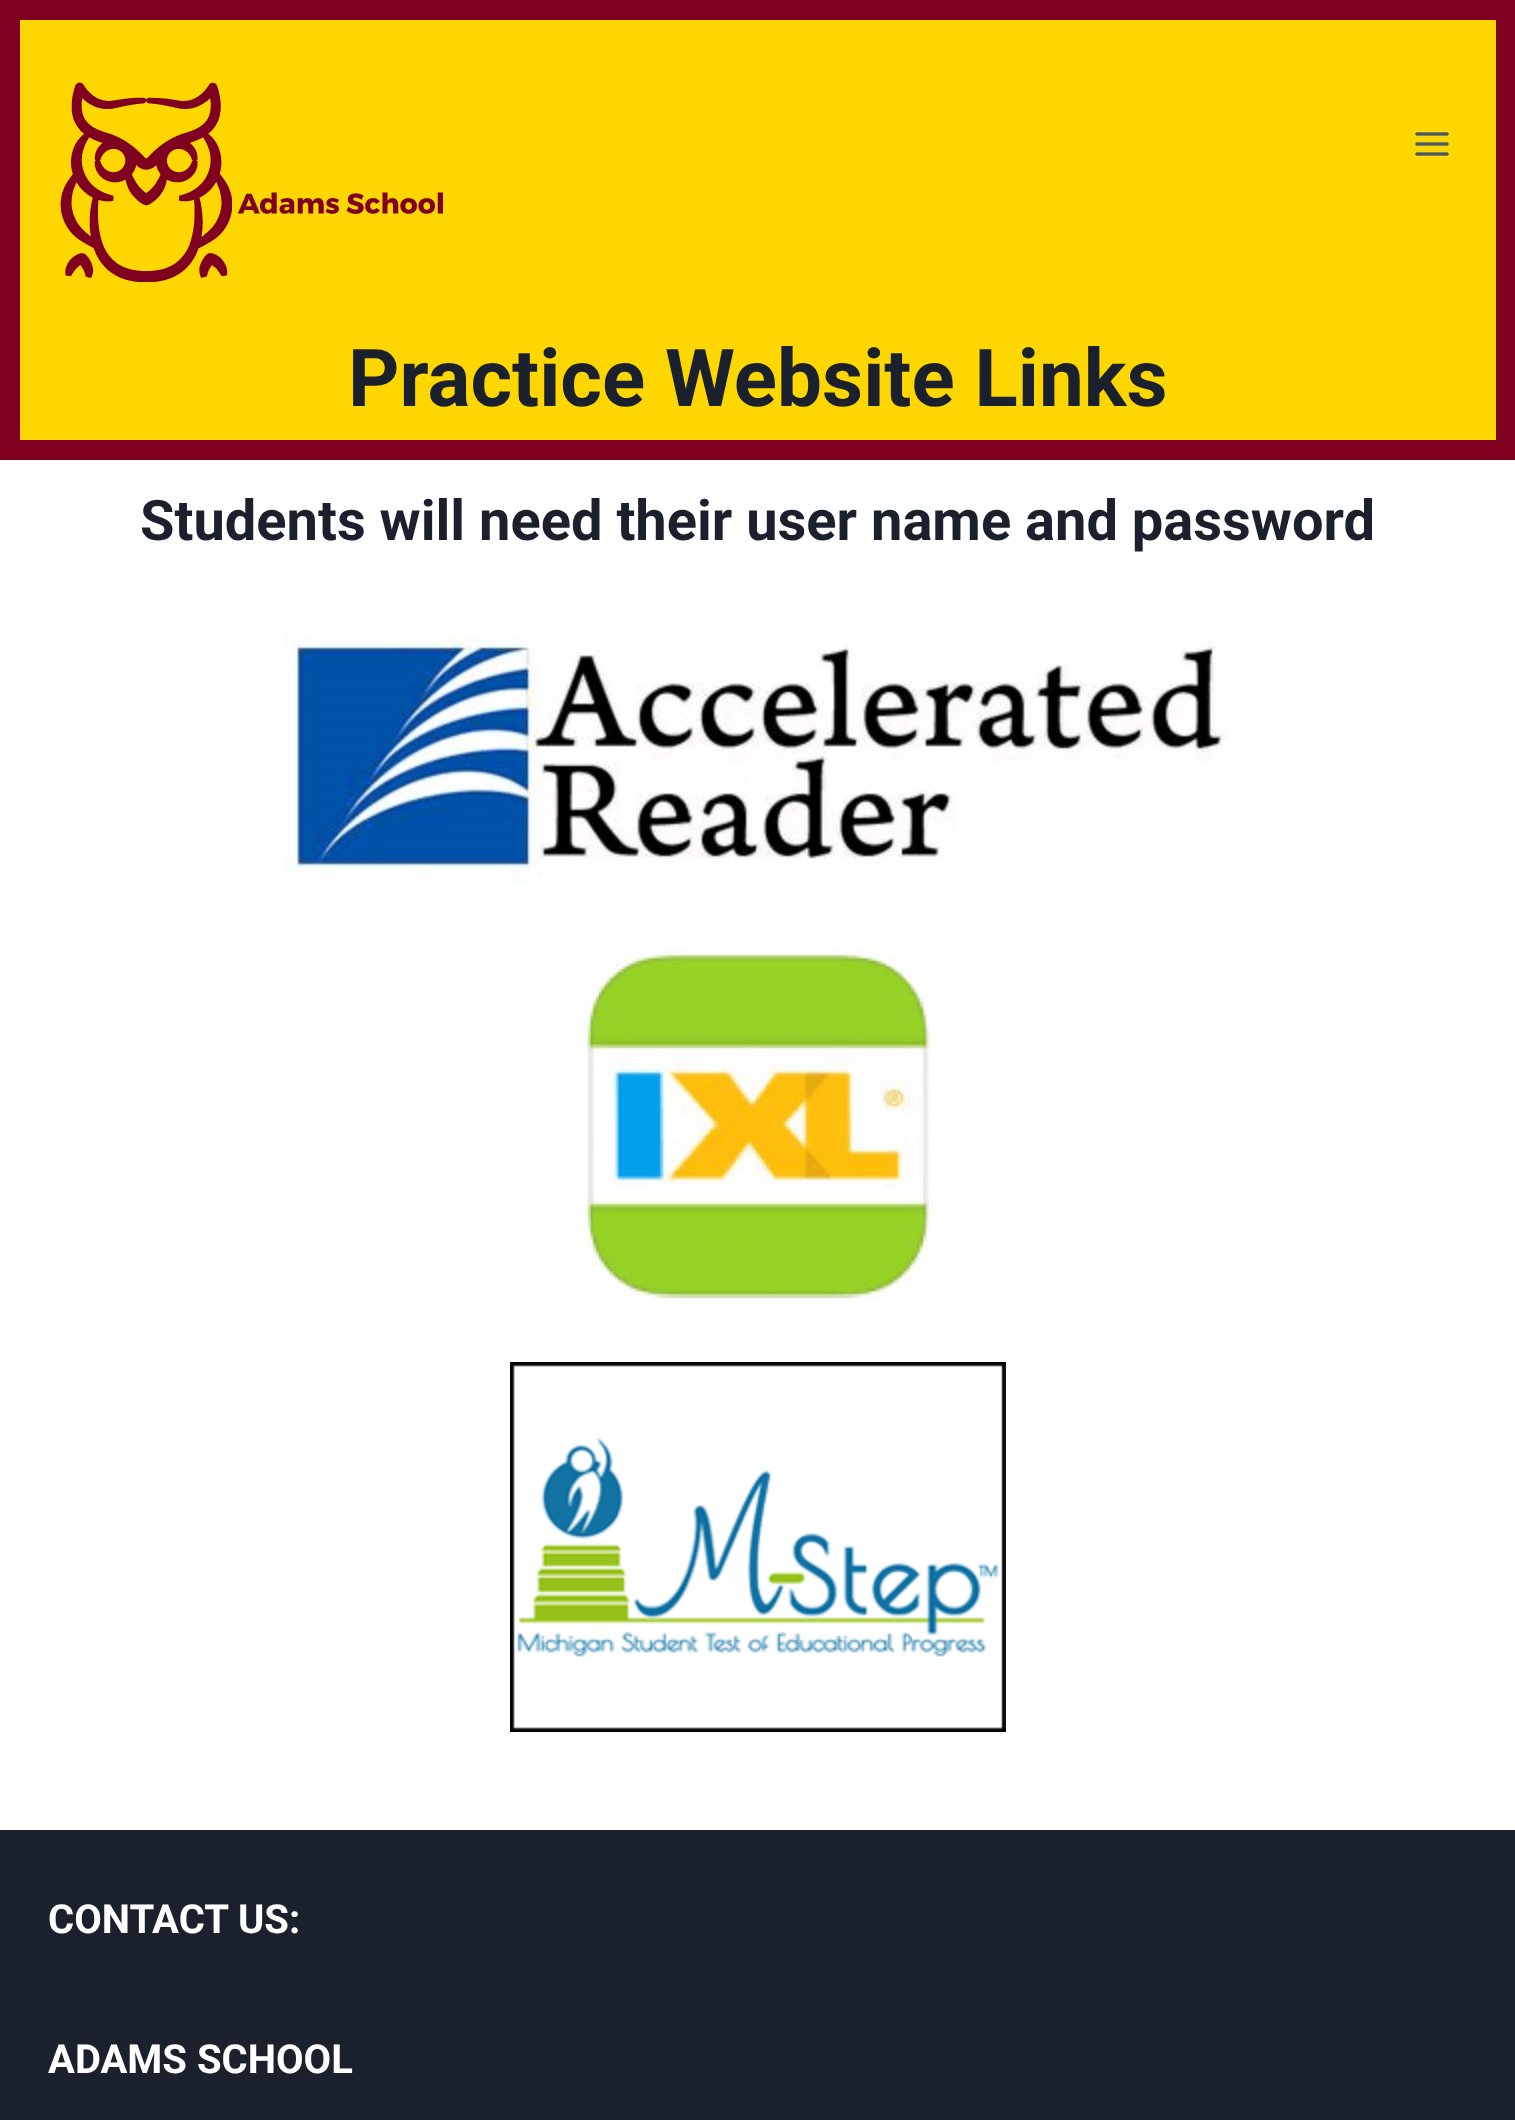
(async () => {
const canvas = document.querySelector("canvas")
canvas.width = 1515
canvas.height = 2120
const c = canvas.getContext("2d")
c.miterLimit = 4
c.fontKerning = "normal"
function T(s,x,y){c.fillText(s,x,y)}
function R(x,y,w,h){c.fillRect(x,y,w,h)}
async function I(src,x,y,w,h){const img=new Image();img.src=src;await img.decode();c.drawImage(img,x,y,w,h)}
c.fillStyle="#fff"
R(0,0,1515,2120)
c.fillStyle="#ffd700"
c.beginPath()
c.rect(10,10,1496,440)
c.fill()
c.strokeStyle="#800020"
c.lineWidth=20
c.stroke()
await I("1.png",60,82,383,200)
await I("2.png",1415,132,34,24)
c.font="bold 80px Roboto"
c.fillStyle="#1a202c"
T("Practice Website Links",348,406)
c.font="bold 56px Roboto"
T("Students will need their user name and password",140,540)
await I("3.png",284,634,944,248)
await I("4.png",584,946,349,352)
await I("5.png",510,1362,496,370)
R(0,1830,1515,290)
c.font="bold 40px Roboto"
c.fillStyle="#fff"
T("CONTACT US:",48,1933)
T("ADAMS SCHOOL",48,2073)
})()
